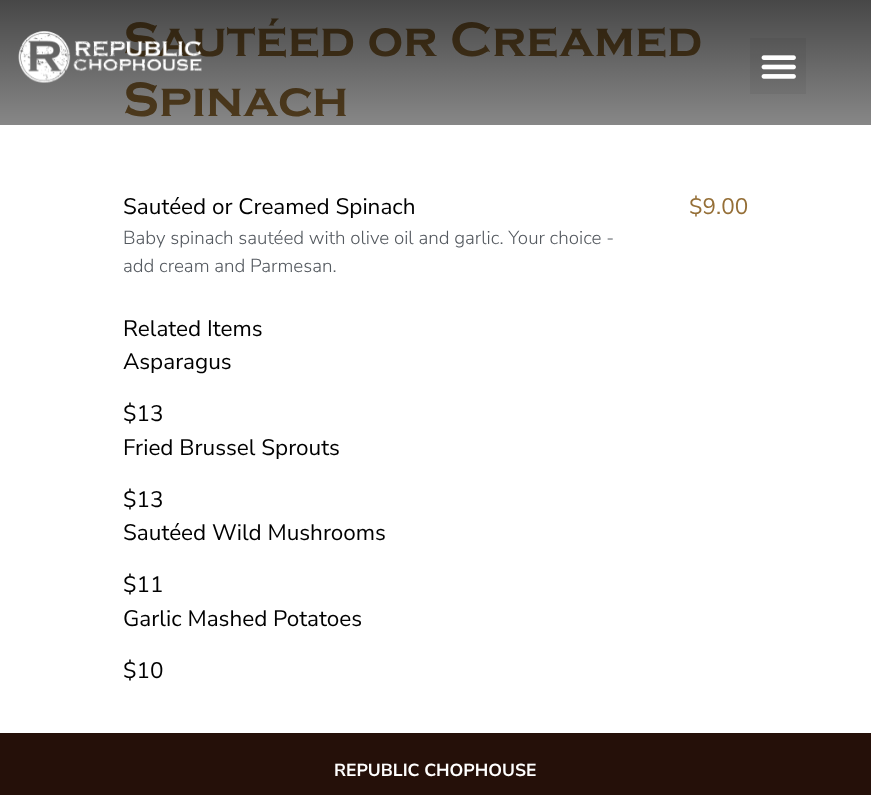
(async () => {
const canvas = document.querySelector("canvas")
canvas.width = 871
canvas.height = 795
const c = canvas.getContext("2d")
c.miterLimit = 4
c.fontKerning = "normal"
function T(s,x,y){c.fillText(s,x,y)}
function R(x,y,w,h){c.fillRect(x,y,w,h)}
async function I(src,x,y,w,h){const img=new Image();img.src=src;await img.decode();c.drawImage(img,x,y,w,h)}
let gradient
c.fillStyle="#fff"
R(0,0,871,795)
c.font="bold 50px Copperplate"
c.fillStyle="#956f37"
T("Sautéed or Creamed",123,56)
T("Spinach",123,116)
gradient = c.createLinearGradient(436,0,436,125)
gradient.addColorStop(0,"#000000b8")
gradient.addColorStop(1,"#00000078")
c.fillStyle = gradient
R(0,0,871,125)
await I("1.png",18,31,184,52)
c.fillStyle="#0000000d"
R(750,38,56,56)
await I("2.png",761,55,35,24)
c.font="22.5px Nunito Sans"
c.fillStyle="#000"
T("Sautéed or Creamed Spinach",123,214)
c.fillStyle="#956f37"
T("$9.00",689,214)
c.font="300 18.75px Nunito Sans"
c.fillStyle="#54595f"
T("Baby spinach sautéed with olive oil and garlic. Your choice -",123,244)
T("add cream and Parmesan.",123,272)
c.font="22.5px Nunito Sans"
c.fillStyle="#000"
T("Related Items",123,336)
T("Asparagus",123,369)
T("$13",123,421)
T("Fried Brussel Sprouts",123,455)
T("$13",123,507)
T("Sautéed Wild Mushrooms",123,540)
T("$11",123,592)
T("Garlic Mashed Potatoes",123,626)
T("$10",123,678)
c.fillStyle="#251009"
R(0,733,871,62)
c.font="bold 17.5px Nunito Sans"
c.fillStyle="#fff"
T("REPUBLIC CHOPHOUSE",334,776)
})()
